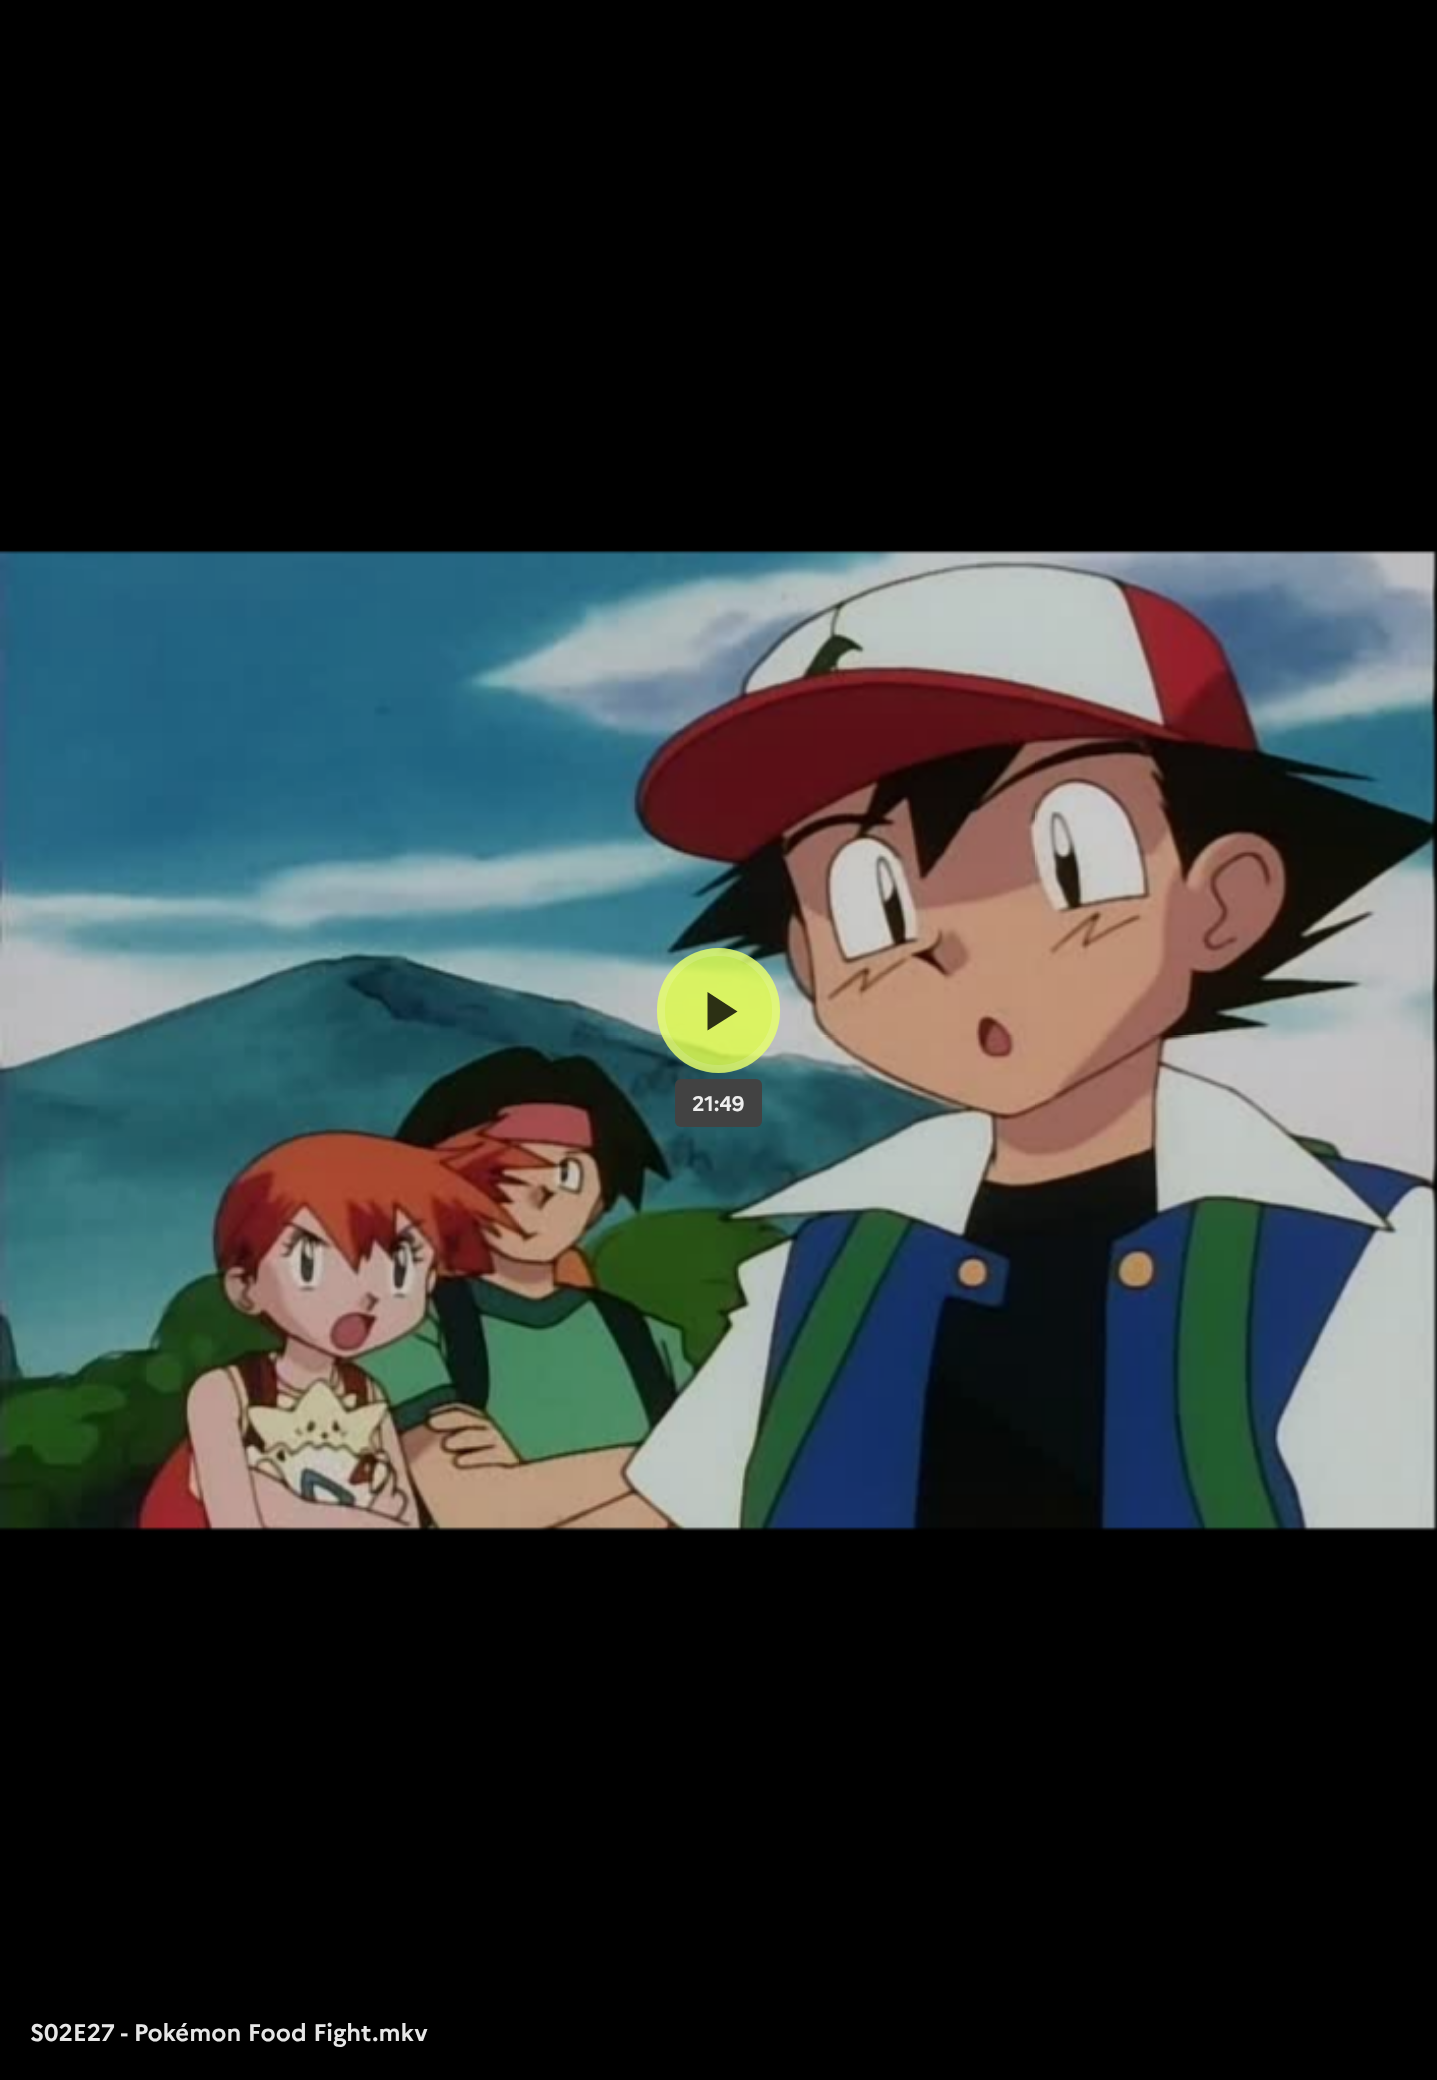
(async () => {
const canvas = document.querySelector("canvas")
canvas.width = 1437
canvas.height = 2080
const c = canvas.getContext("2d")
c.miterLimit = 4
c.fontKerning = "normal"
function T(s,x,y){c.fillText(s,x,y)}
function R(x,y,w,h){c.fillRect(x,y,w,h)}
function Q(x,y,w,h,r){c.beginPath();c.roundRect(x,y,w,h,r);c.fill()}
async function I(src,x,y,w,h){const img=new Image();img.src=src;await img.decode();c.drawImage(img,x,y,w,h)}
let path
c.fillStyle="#000"
R(0,0,1437,2080)
await I("1.png",0,550,1437,981)
c.fillStyle="#e1ff4acc"
Q(657,948,123,125,61.5)
c.beginPath()
c.roundRect(661,952,115,117,57.5)
c.strokeStyle="#ffffff29"
c.lineWidth=8
c.stroke()
c.fillStyle="#2c3014"
path = new Path2D("M707.5 992v38.5l30-19z")
c.fill(path)
c.fillStyle="#424242"
Q(675,1079,87,48,6)
c.font="bold 21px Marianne"
c.fillStyle="#eee"
T("21:49",692,1111)
c.font="bold 24px Marianne"
c.fillStyle="#e6e6e6"
T("S02E27 - Pokémon Food Fight.mkv",30,2041)
})()
